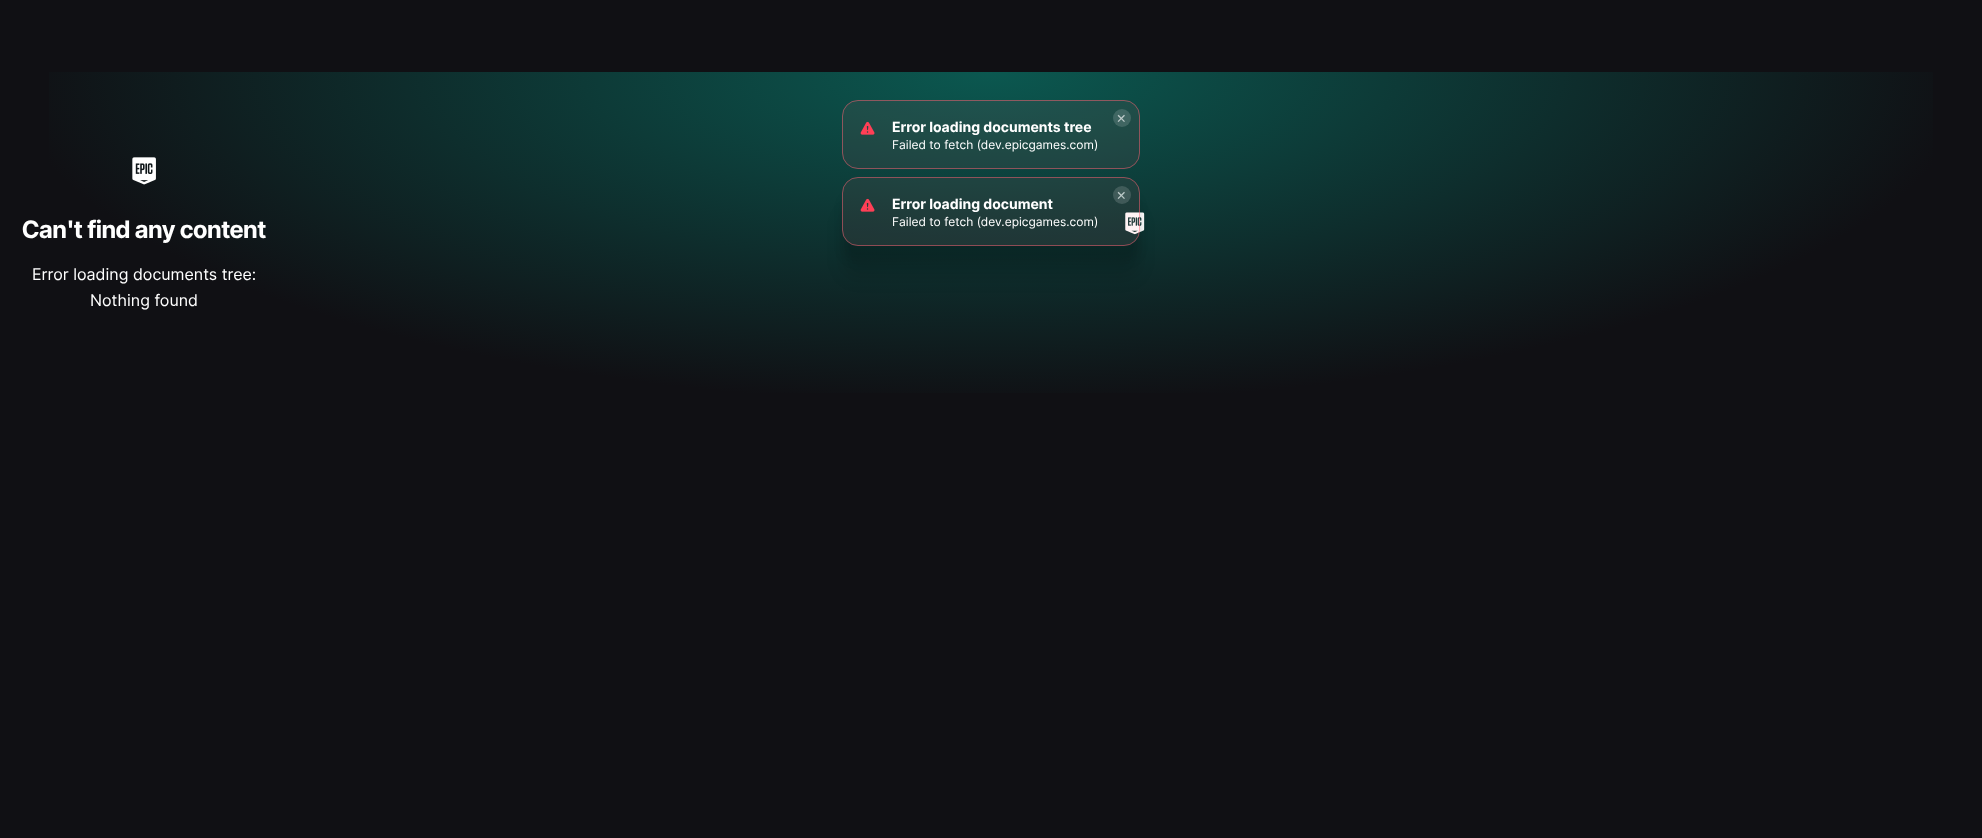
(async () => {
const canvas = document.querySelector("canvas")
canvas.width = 1982
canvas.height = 838
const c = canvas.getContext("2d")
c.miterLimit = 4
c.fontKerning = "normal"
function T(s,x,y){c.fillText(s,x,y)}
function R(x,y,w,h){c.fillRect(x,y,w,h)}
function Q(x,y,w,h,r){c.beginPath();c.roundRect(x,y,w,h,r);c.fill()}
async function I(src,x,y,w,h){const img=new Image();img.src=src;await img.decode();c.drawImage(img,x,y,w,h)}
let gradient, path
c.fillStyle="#101014"
R(0,0,1982,838)
gradient = c.createRadialGradient(991,212.81,0,991,212.81,1401)
gradient.addColorStop(0,"#0b5850")
gradient.addColorStop(.7,"#101014")
c.fillStyle = gradient
c.beginPath()
c.rect(49,72,1884,321)
c.save()
c.clip()
c.scale(1,474 / 1401)
c.fillRect(0,0,1982,2477)
c.restore()
c.fillStyle="#ff617314"
Q(842,100,298,69,16)
c.beginPath()
c.roundRect(842.5,100.5,297,68,15.5)
c.strokeStyle="#ff617380"
c.stroke()
c.fillStyle="#ffffff26"
c.beginPath()
c.arc(1122,118,9,0,7)
c.fill()
c.font="16px Inter"
c.fillStyle="#bccac9"
T("×",1116,123)
await I("1.png",860,121,15,14)
c.font="bold 14px Inter"
c.fillStyle="#fff"
T("Error loading documents tree",892,132)
c.font="12px Inter"
T("Failed to fetch (dev.epicgames.com)",892,149)
await I("4.png",1125,212,20,23)
c.save()
path = new Path2D("M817 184h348v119h-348zm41-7h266c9 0 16 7 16 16v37c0 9-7 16-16 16h-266c-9 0-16-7-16-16v-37c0-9 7-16 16-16z")
c.clip(path,"evenodd")
c.fillStyle="#0000001a"
c.filter="blur(8px)"
c.beginPath()
c.roundRect(842,209,298,69,16)
c.fill()
c.filter="none"
c.restore()
c.save()
path = new Path2D("M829 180h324v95h-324zm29-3h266c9 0 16 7 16 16v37c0 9-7 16-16 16h-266c-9 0-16-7-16-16v-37c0-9 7-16 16-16z")
c.clip(path,"evenodd")
c.fillStyle="#0000001a"
c.filter="blur(4px)"
c.beginPath()
c.roundRect(842,193,298,69,16)
c.fill()
c.filter="none"
c.restore()
c.fillStyle="#ff617314"
Q(842,177,298,69,16)
c.beginPath()
c.roundRect(842.5,177.5,297,68,15.5)
c.stroke()
c.fillStyle="#ffffff26"
c.beginPath()
c.arc(1122,195,9,0,7)
c.fill()
c.font="16px Inter"
c.fillStyle="#bccac9"
T("×",1116,200)
await I("2.png",860,198,15,14)
c.font="bold 14px Inter"
c.fillStyle="#fff"
T("Error loading document",892,209)
c.font="12px Inter"
T("Failed to fetch (dev.epicgames.com)",892,226)
await I("3.png",132,157,24,28)
c.font="bold 24px Inter Tight"
T("Can't find any content",22,238)
c.font="16px Inter"
T("Error loading documents tree:",32,280)
T("Nothing found",90,306)
})()
